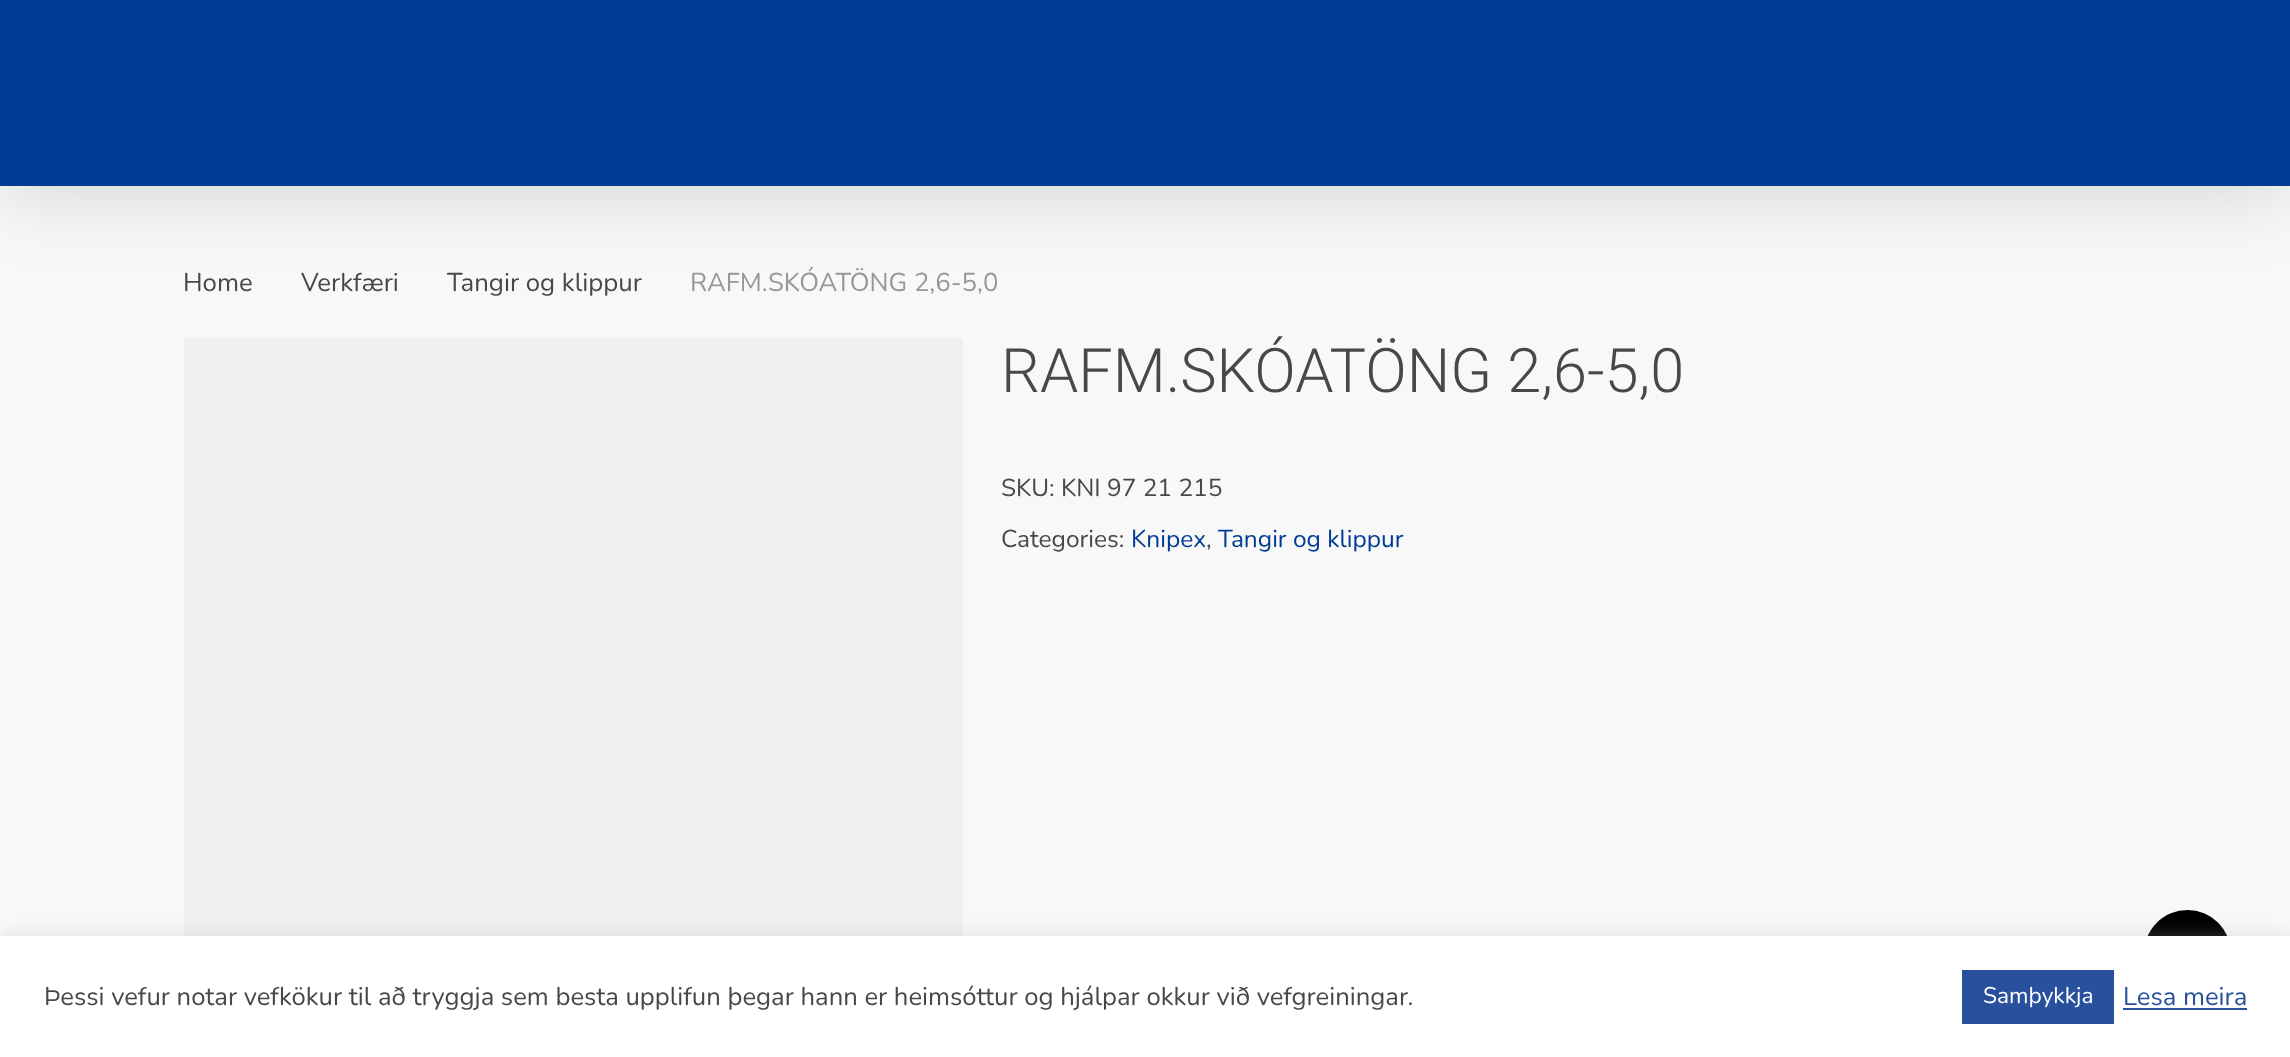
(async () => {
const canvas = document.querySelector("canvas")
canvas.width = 2290
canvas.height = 1057
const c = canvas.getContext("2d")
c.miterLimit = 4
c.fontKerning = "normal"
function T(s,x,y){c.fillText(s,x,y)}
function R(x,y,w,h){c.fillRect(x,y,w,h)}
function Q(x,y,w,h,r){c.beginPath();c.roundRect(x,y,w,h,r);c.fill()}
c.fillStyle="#f8f8f8"
R(0,0,2290,1057)
c.fillStyle="#00000026"
c.filter="blur(39.5px)"
c.beginPath()
c.rect(0,5,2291,186)
c.fill()
c.filter="none"
c.fillStyle="#003c96"
R(0,0,2290,186)
c.font="200 25.75px Nunito"
c.fillStyle="#484848"
T("Home",183,291)
T("Verkfæri",301,291)
T("Tangir og klippur",447,291)
c.fillStyle="#979797"
T("RAFM.SKÓATÖNG 2,6-5,0",690,291)
c.fillStyle="#f0f0f0"
R(184,338,779,598)
c.font="300 61.25px Roboto"
c.fillStyle="#484848"
T("RAFM.SKÓATÖNG 2,6-5,0",1001,392)
c.font="200 24.5px Nunito"
T("SKU: KNI 97 21 215",1001,496)
T("Categories:",1001,547)
c.fillStyle="#003c96"
T("Knipex",1131,547)
c.fillStyle="#484848"
T(",",1206,547)
c.fillStyle="#003c96"
T("Tangir og klippur",1218,547)
c.fillStyle="#000"
Q(2144,910,87,88,43.5)
c.fillStyle="#acabab4d"
c.filter="blur(9px)"
c.beginPath()
c.rect(0,935,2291,120)
c.fill()
c.filter="none"
c.fillStyle="#fff"
R(0,936,2290,121)
c.font="200 25.67px Nunito"
c.fillStyle="#484848"
T("Þessi vefur notar vefkökur til að tryggja sem besta upplifun þegar hann er heimsóttur og hjálpar okkur við vefgreiningar.",44,1005)
c.fillStyle="#29509d"
R(1962,970,152,54)
c.font="200 22.75px Nunito"
c.fillStyle="#fff"
T("Samþykkja",1983,1003)
c.font="200 25.67px Nunito"
c.fillStyle="#29509d"
T("Lesa meira",2123,1005)
R(2123,1008,124,2)
})()
